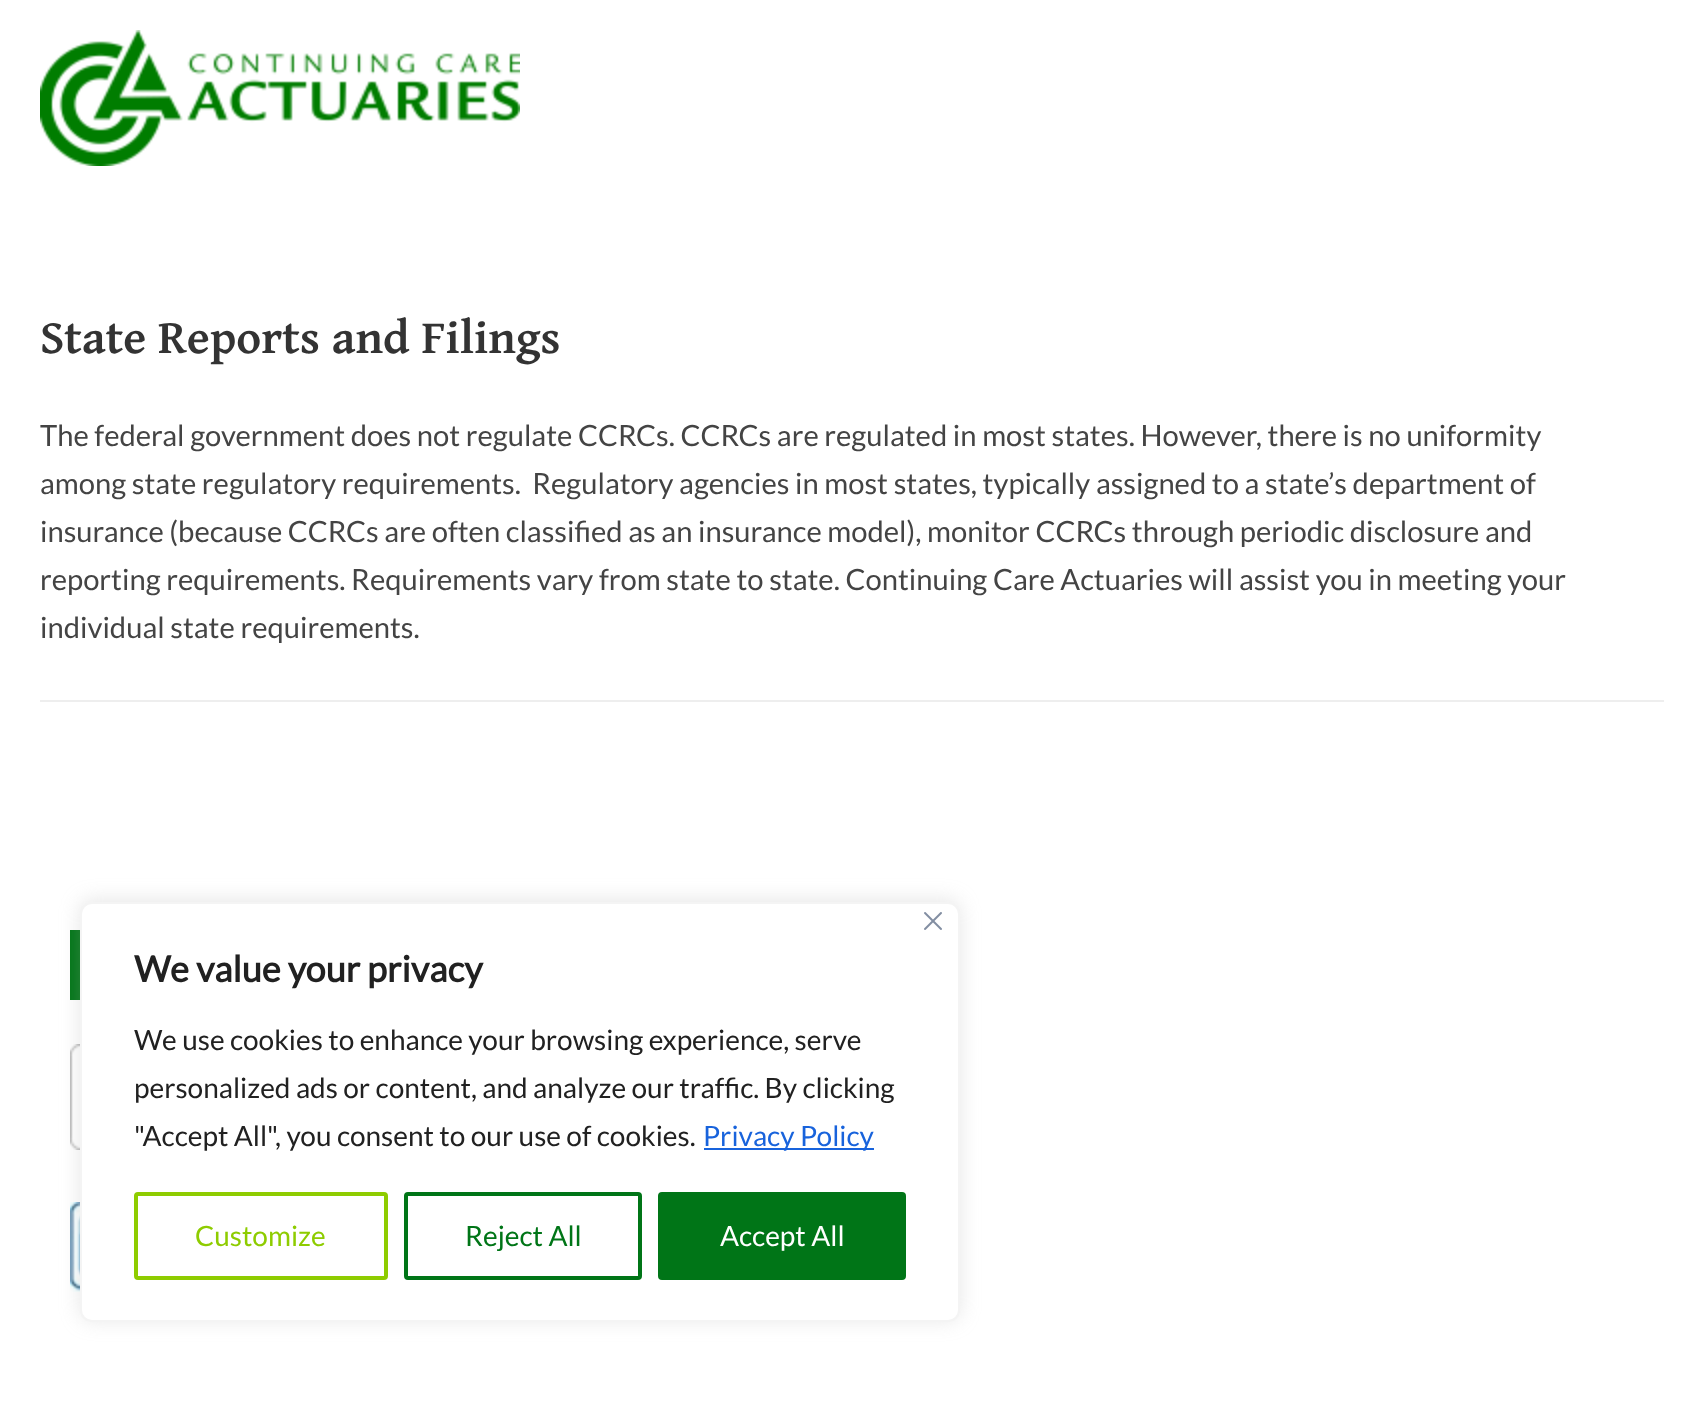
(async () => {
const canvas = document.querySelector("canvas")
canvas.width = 1703
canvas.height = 1401
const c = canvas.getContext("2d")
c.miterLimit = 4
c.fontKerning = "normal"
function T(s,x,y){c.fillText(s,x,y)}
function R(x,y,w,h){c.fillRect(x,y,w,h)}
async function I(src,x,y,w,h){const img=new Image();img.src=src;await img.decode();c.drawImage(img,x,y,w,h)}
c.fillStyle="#fff"
R(0,0,1703,1401)
await I("1.png",40,30,480,136)
c.fillStyle="#eee"
R(40,700,1624,2)
c.font="bold 47.5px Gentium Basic"
c.fillStyle="#333"
T("State Reports and Filings",40,353)
c.font="29.18px Lato"
c.fillStyle="#444"
T("The federal government does not regulate CCRCs. CCRCs are regulated in most states. However, there is no uniformity",40,446)
T("among state regulatory requirements.  Regulatory agencies in most states, typically assigned to a state’s department of",40,494)
T("insurance (because CCRCs are often classified as an insurance model), monitor CCRCs through periodic disclosure and",40,542)
T("reporting requirements. Requirements vary from state to state. Continuing Care Actuaries will assist you in meeting your",40,590)
T("individual state requirements.",40,638)
c.fillStyle="#007517"
R(70,930,10,70)
await I("2.png",70,1044,10,106)
await I("3.png",70,1202,10,90)
c.fillStyle="#acabab4d"
c.filter="blur(10px)"
c.beginPath()
c.roundRect(80,900,880,420,12)
c.fill()
c.filter="none"
c.fillStyle="#fff"
c.beginPath()
c.roundRect(81,903,878,418,11)
c.fill()
c.strokeStyle="#f4f4f4"
c.lineWidth=2
c.stroke()
await I("4.png",924,912,18,18)
c.font="bold 36px Lato"
c.fillStyle="#212121"
T("We value your privacy",134,982)
c.font="28px Lato"
T("We use cookies to enhance your browsing experience, serve",134,1050)
T("personalized ads or content, and analyze our traffic. By clicking",134,1098)
T("\"Accept All\", you consent to our use of cookies.",134,1146)
c.fillStyle="#1863dc"
R(704,1148,170,2)
T("Privacy Policy",703,1146)
c.beginPath()
c.roundRect(136,1194,250,84,2)
c.strokeStyle="#8ecc00"
c.lineWidth=4
c.stroke()
c.fillStyle="#8ecc00"
T("Customize",195,1246)
c.beginPath()
c.roundRect(406,1194,234,84,2)
c.strokeStyle="#007517"
c.stroke()
c.fillStyle="#007517"
T("Reject All",465,1246)
c.beginPath()
c.roundRect(660,1194,244,84,2)
c.fill()
c.stroke()
c.fillStyle="#fff"
T("Accept All",720,1246)
})()
